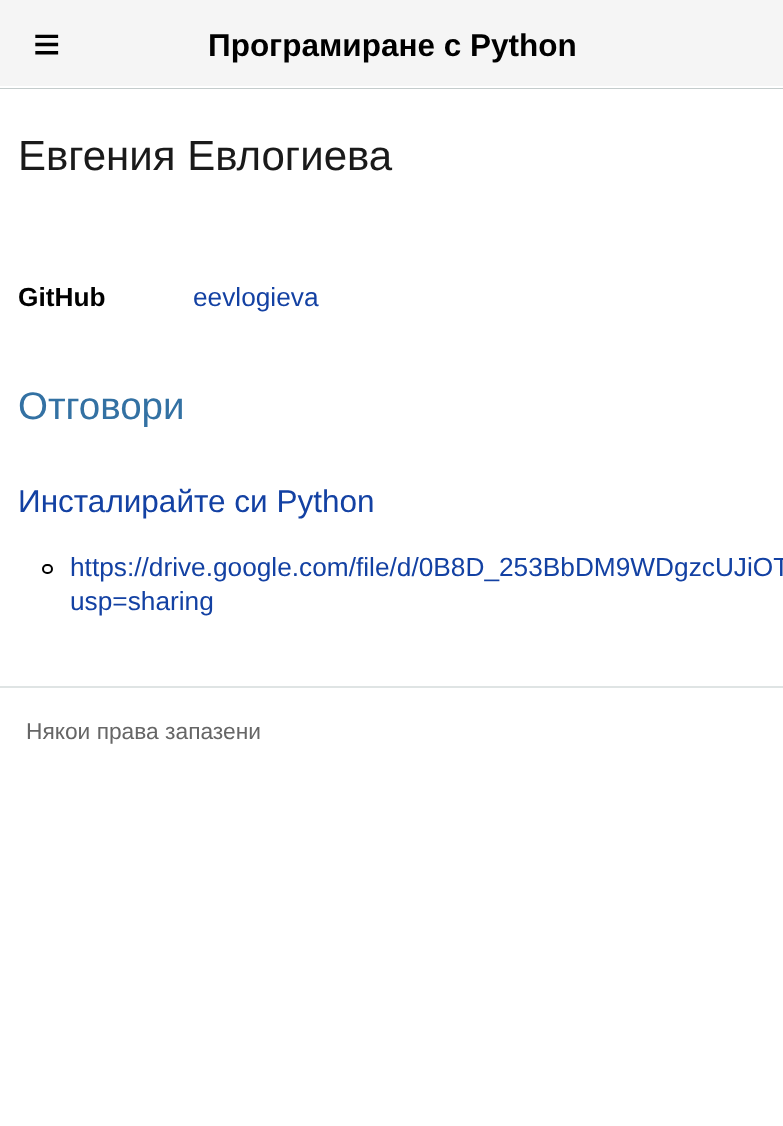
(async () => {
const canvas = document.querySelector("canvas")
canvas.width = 783
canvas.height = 1126
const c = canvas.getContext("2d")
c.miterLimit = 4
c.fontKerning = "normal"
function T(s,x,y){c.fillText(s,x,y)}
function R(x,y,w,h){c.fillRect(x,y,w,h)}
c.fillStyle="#fff"
R(0,0,783,1126)
c.fillStyle="#c4cccc"
R(0,88,783,1)
c.fillStyle="#f5f5f5"
R(0,0,783,86)
c.font="47px Liberation Sans"
c.fillStyle="#000"
T("≡",33,60)
c.font="bold 31.5px Liberation Sans"
T("Програмиране с Python",208,56)
c.font="42px Liberation Sans"
c.fillStyle="#1a1a1a"
T("Евгения Евлогиева",18,170)
c.font="bold 26.25px Liberation Sans"
c.fillStyle="#000"
T("GitHub",18,306)
c.font="26.25px Liberation Sans"
c.fillStyle="#1341a3"
T("eevlogieva",193,306)
c.font="38.5px Liberation Sans"
c.fillStyle="#3371a3"
T("Отговори",18,419)
c.font="31.5px Liberation Sans"
c.fillStyle="#1341a3"
T("Инсталирайте си Python",18,512)
c.beginPath()
c.roundRect(43,565,9,8,4)
c.strokeStyle="#000"
c.lineWidth=2
c.stroke()
c.font="26.25px Liberation Sans"
T("https://drive.google.com/file/d/0B8D_253BbDM9WDgzcUJiOT",70,576)
T("usp=sharing",70,610)
c.fillStyle="#dfe4e4"
R(0,686,783,2)
c.font="22.75px Liberation Sans"
c.fillStyle="#666"
T("Някои права запазени",26,739)
})()
